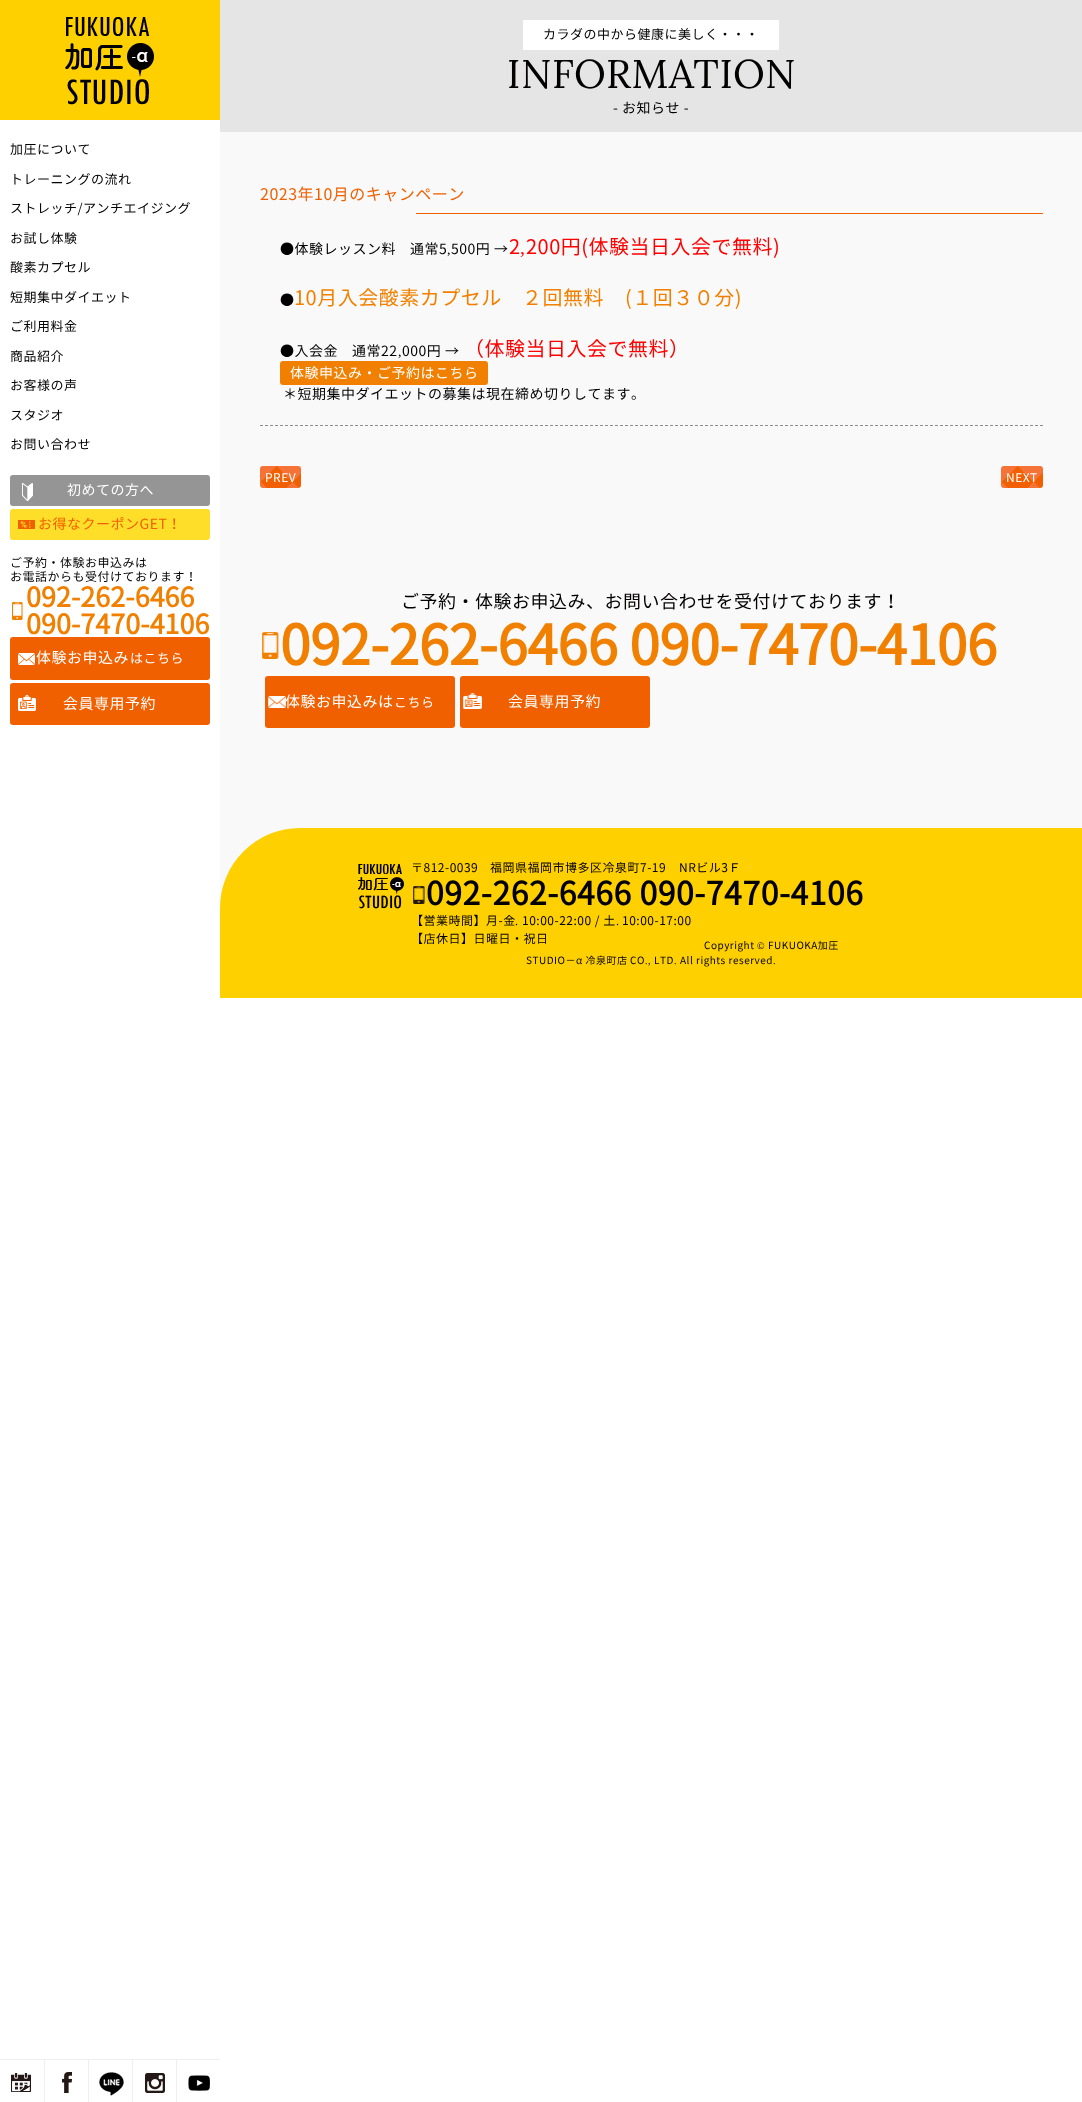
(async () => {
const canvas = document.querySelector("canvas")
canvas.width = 1082
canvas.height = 2102
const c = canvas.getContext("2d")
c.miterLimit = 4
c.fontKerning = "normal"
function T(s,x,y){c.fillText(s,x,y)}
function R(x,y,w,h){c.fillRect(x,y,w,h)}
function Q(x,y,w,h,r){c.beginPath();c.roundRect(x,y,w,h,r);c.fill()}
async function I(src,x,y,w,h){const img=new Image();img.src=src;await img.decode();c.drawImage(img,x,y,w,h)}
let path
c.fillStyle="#fff"
R(0,0,1082,2102)
c.fillStyle="#ffd000"
R(0,0,220,120)
await I("1.png",65,17,89,88)
c.letterSpacing="0.5px"
c.font="13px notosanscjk"
c.fillStyle="#030000"
T("加圧について",10,154)
T("トレーニングの流れ",10,184)
T("ストレッチ/アンチエイジング",10,213)
T("お試し体験",10,243)
T("酸素カプセル",10,272)
T("短期集中ダイエット",10,302)
T("ご利用料金",10,331)
T("商品紹介",10,361)
T("お客様の声",10,390)
T("スタジオ",10,420)
T("お問い合わせ",10,449)
c.fillStyle="#959595"
Q(10,475,200,31,3)
await I("2.png",22,483,11,18)
c.font="14px notosanscjk"
c.fillStyle="#fff"
T("初めての方へ",67,495)
c.fillStyle="#ffde2a"
Q(10,509,200,31,3)
await I("3.png",18,520,17,9)
c.fillStyle="#f16000"
T("お得なクーポンGET！",38,529)
c.font="12px notosanscjk"
c.fillStyle="#030000"
T("ご予約・体験お申込みは",10,567)
T("お電話からも受付けております！",10,581)
await I("4.png",12,602,11,18)
c.letterSpacing="0px"
c.font="bold 27px notosanscjk"
c.fillStyle="#f18000"
T("092-262-6466",26,607)
T("090-7470-4106",26,634)
c.fillStyle="#f16000"
Q(10,637,200,43,3)
await I("5.png",18,653,17,12)
c.letterSpacing="0.5px"
c.font="15px notosanscjk"
c.fillStyle="#fff"
T("体験お申込み",36,663)
c.font="13px notosanscjk"
T("はこちら",130,663)
c.fillStyle="#f16000"
Q(10,683,200,42,3)
await I("6.png",18,695,18,16)
c.font="15px notosanscjk"
c.fillStyle="#fff"
T("会員専用予約",63,709)
c.fillStyle="#eee"
R(0,2059,220,1)
await I("7.png",11,2073,20,19)
R(44,2060,1,42)
await I("8.png",62,2072,10,21)
R(88,2060,1,42)
await I("9.png",99,2072,25,24)
R(132,2060,1,42)
await I("10.png",145,2073,20,20)
R(176,2060,1,42)
await I("11.png",188,2075,22,16)
c.fillStyle="#f9f9f9"
R(220,132,862,776)
c.fillStyle="#e5e5e5"
R(220,0,862,132)
c.fillStyle="#fff"
R(523,20,256,30)
c.font="13px notosanscjk"
c.fillStyle="#030000"
T("カラダの中から健康に美しく・・・",543,39)
c.font="40px Lora"
T("INFORMATION",507,88)
c.font="14px notosanscjk"
T("- お知らせ -",613,113)
c.font="16px notosanscjk"
c.fillStyle="#f16000"
T("2023年10月のキャンペーン",260,200)
R(416,213,627,1)
path = new Path2D("M260 425.5h783")
c.strokeStyle="#8c8d8c"
c.setLineDash([3,2])
c.stroke(path)
c.font="14px notosanscjk"
c.fillStyle="#030000"
T("●体験レッスン料",280,254)
T("通常5",410,254)
c.font="14px Liberation Serif"
T(",",447,254)
c.font="14px notosanscjk"
T("500円 →",451,254)
c.font="20px notosanscjk"
c.fillStyle="#f00"
T("2",509,254)
c.font="20px Liberation Serif"
T(",",520,254)
c.font="20px notosanscjk"
T("200円(体験当日入会で無料)",526,254)
c.font="14px notosanscjk"
c.fillStyle="#030000"
T("●",280,305)
c.font="20px notosanscjk"
c.fillStyle="#f18000"
T("10月入会酸素カプセル",294,305)
T("２回無料",522,305)
T("(１回３０分)",625,305)
c.font="14px notosanscjk"
c.fillStyle="#030000"
T("●入会金",280,356)
T("通常22",352,356)
c.font="14px Liberation Serif"
T(",",398,356)
c.font="14px notosanscjk"
T("000円 →",402,356)
c.font="20px notosanscjk"
c.fillStyle="#f00"
T("（体験当日入会で無料）",464,356)
c.fillStyle="#f18000"
Q(280,361,208,24,3)
c.font="14px notosanscjk"
c.fillStyle="#fff"
T("体験申込み・ご予約はこちら",290,378)
c.fillStyle="#030000"
T("＊短期集中ダイエットの募集は現在締め切りしてます。",283,399)
await I("12.png",260,466,41,22)
c.font="12px notosanscjk"
c.fillStyle="#fff"
T("PREV",265,482)
await I("13.png",1001,466,42,22)
T("NEXT",1006,482)
c.font="18px notosanscjk"
c.fillStyle="#030000"
T("ご予約・体験お申込み、お問い合わせを受付けております！",401,608)
await I("14.png",262,632,17,27)
c.letterSpacing="-0.5px"
c.font="bold 55px notosanscjk"
c.fillStyle="#f18000"
T("092-262-6466 090-7470-4106",280,665)
c.fillStyle="#f16000"
Q(265,676,190,52,3)
await I("15.png",268,696,18,12)
c.letterSpacing="0.5px"
c.font="15px notosanscjk"
c.fillStyle="#fff"
T("体験お申込みは",285,707)
c.font="13px notosanscjk"
T("こちら",394,707)
c.fillStyle="#f16000"
Q(460,676,190,52,3)
await I("16.png",463,693,19,16)
c.font="15px notosanscjk"
c.fillStyle="#fff"
T("会員専用予約",508,707)
c.fillStyle="#ffd000"
c.beginPath()
c.roundRect(220,828,862,170,[80,0,0,0])
c.fill()
await I("17.png",358,864,46,45)
c.font="12px notosanscjk"
c.fillStyle="#030000"
T("〒812-0039",411,872)
T("福岡県福岡市博多区冷泉町7-19",490,872)
T("NRビル3Ｆ",679,872)
await I("18.png",413,886,12,18)
c.font="bold 32px notosanscjk"
T("092-262-6466 090-7470-4106",426,905)
c.font="12px notosanscjk"
T("【営業時間】月-金",411,925)
c.font="12px Liberation Serif"
T(".",515,925)
c.font="12px notosanscjk"
T("10:00-22:00 / 土",522,925)
c.font="12px Liberation Serif"
T(".",616,925)
c.font="12px notosanscjk"
T("10:00-17:00",622,925)
T("【店休日】日曜日・祝日",411,943)
c.font="10px notosanscjk"
T("Copyright",704,949)
c.font="10px Liberation Serif"
T("©",757,949)
c.font="10px notosanscjk"
T("FUKUOKA加圧",768,949)
T("STUDIO－α 冷泉町店 CO",526,964)
c.font="10px Liberation Serif"
T(".,",645,964)
c.font="10px notosanscjk"
T("LTD",654,964)
c.font="10px Liberation Serif"
T(".",674,964)
c.font="10px notosanscjk"
T("All rights reserved",680,964)
c.font="10px Liberation Serif"
T(".",773,964)
})()
